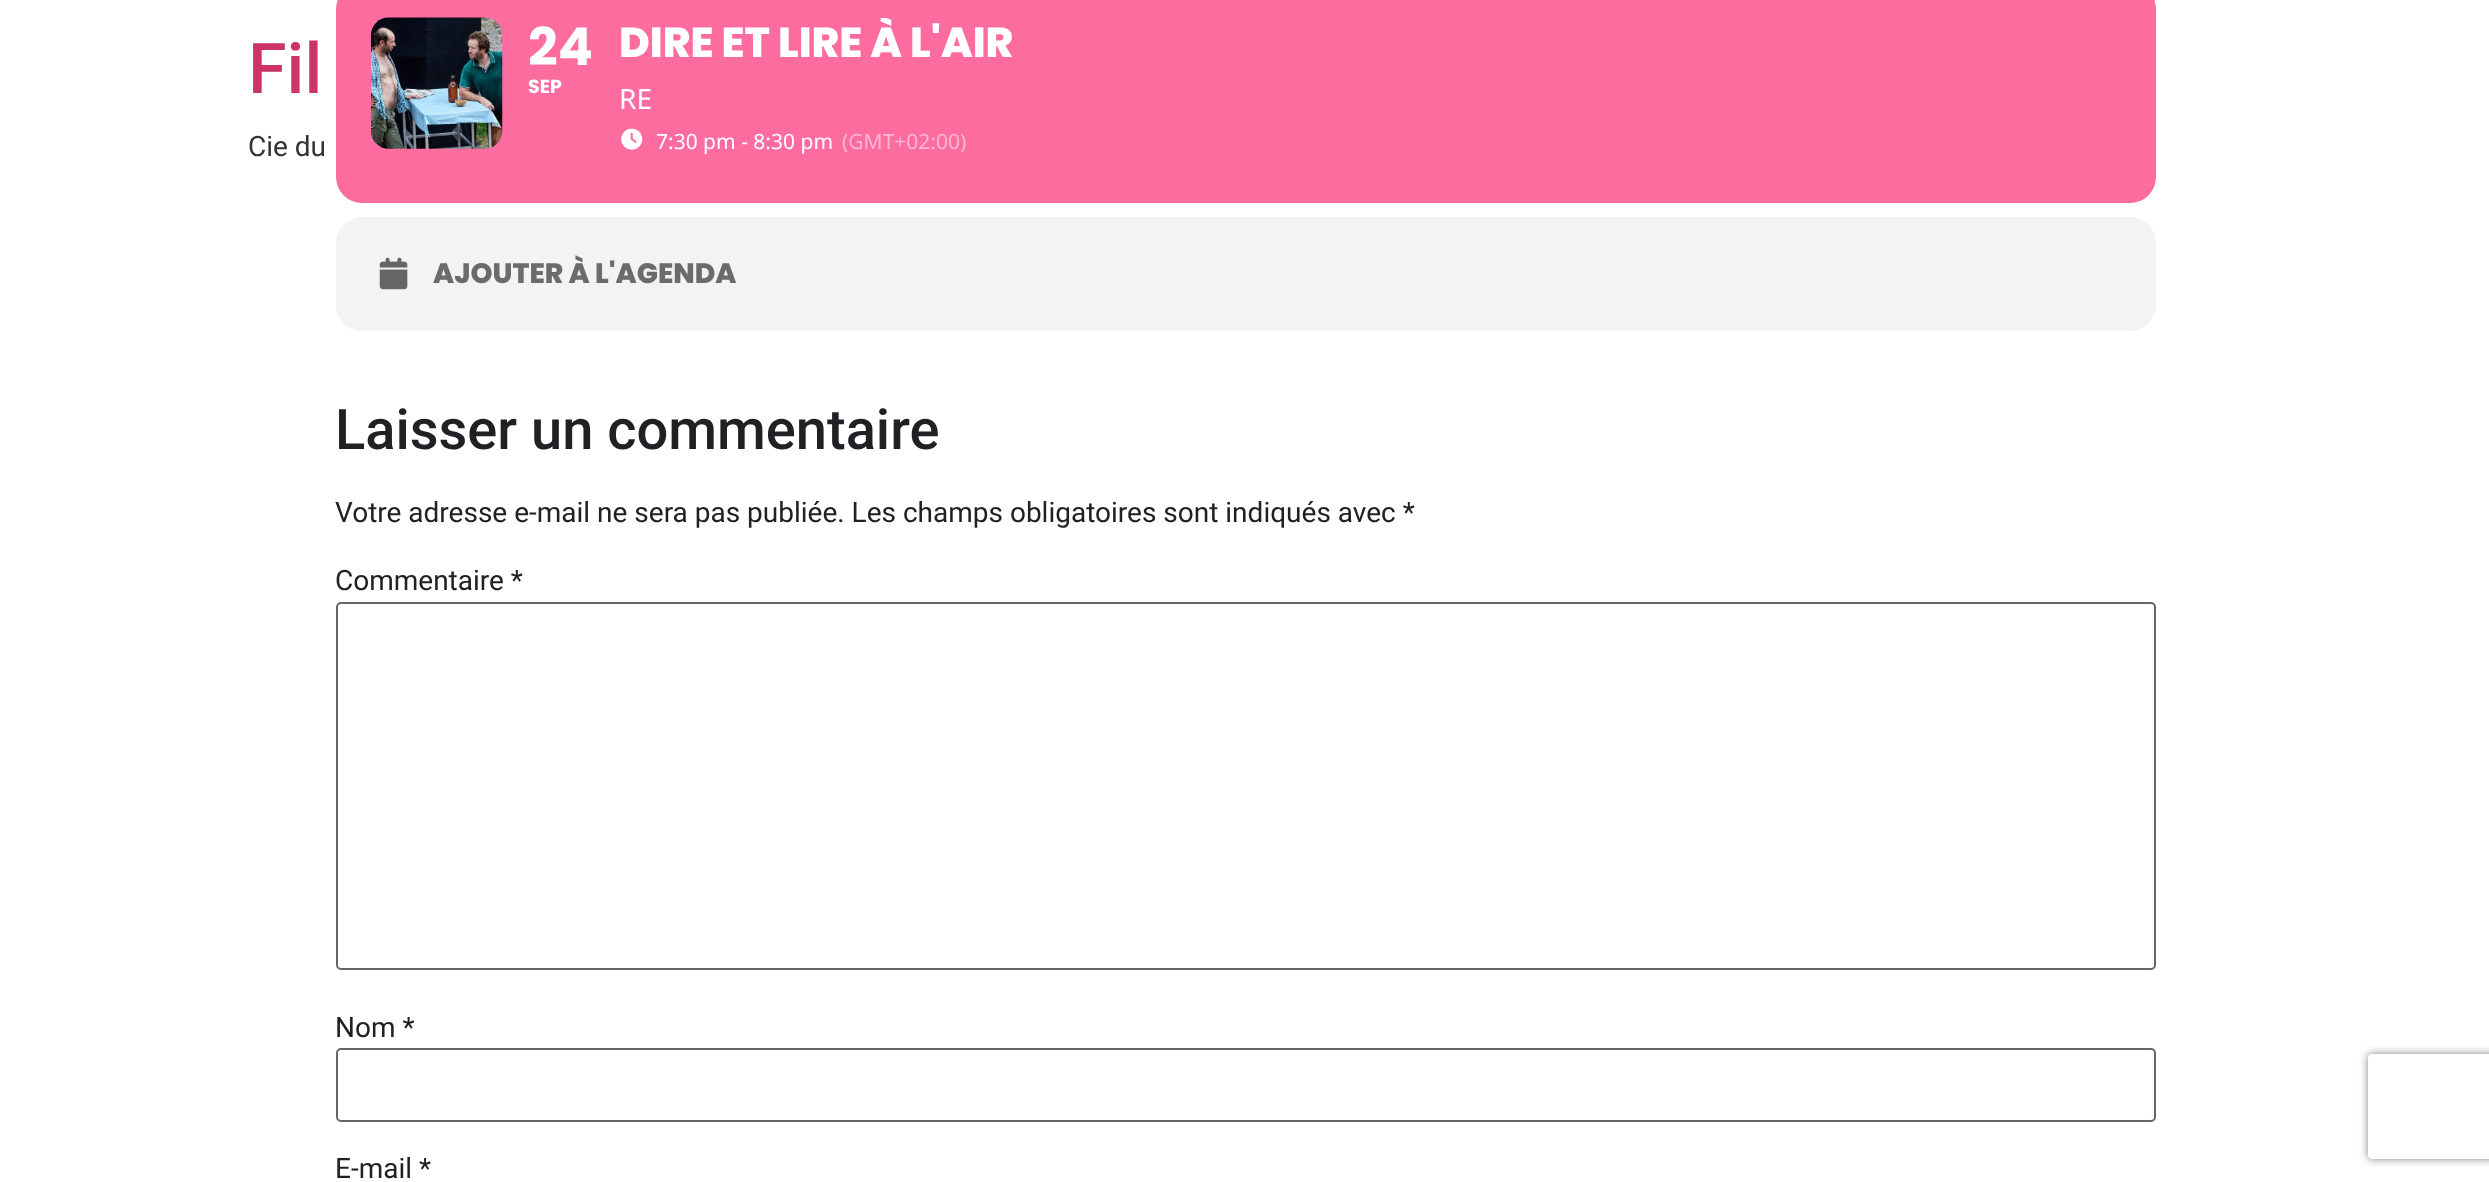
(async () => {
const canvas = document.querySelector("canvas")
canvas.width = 2489
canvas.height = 1182
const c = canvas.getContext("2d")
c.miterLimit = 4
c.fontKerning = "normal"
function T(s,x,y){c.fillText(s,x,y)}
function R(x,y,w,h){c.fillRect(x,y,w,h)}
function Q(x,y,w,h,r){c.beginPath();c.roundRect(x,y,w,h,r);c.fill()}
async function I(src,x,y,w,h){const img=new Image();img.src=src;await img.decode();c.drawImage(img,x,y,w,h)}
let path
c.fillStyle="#fff"
R(0,0,2489,1182)
c.font="500 70px Roboto"
c.fillStyle="#c36"
T("Fil",248,93)
c.font="28px Roboto"
c.fillStyle="#333"
T("Cie du",248,156)
c.fillStyle="#fd6c9f"
Q(336,-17,1820,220,26)
await I("1.png",371,17,132,132)
c.font="bold 52px Poppins"
c.fillStyle="#fff"
T("24",528,65)
c.font="bold 19px Poppins"
T("SEP",528,93)
c.save()
c.beginPath()
c.rect(620,18,1475,150)
c.clip()
c.font="800 42px Poppins"
T("DIRE ET LIRE À L'AIR",619,57)
c.restore()
c.font="28px Noto Sans"
T("RE",619,109)
await I("2.png",621,128,22,22)
c.font="21px Noto Sans"
T("7:30 pm - 8:30 pm",656,149)
c.fillStyle="#feb6cf"
T("(GMT+02:00)",842,149)
c.fillStyle="#f3f3f3"
Q(336,217,1820,114,26)
await I("3.png",379,257,29,33)
c.font="800 28px Poppins"
c.fillStyle="#6b6b6b"
T("AJOUTER À L'AGENDA",433,283)
c.font="500 56px Roboto"
c.fillStyle="#202124"
T("Laisser un commentaire",335,449)
c.font="28px Roboto"
T("Votre adresse e-mail ne sera pas publiée. Les champs obligatoires sont indiqués avec *",335,522)
T("Commentaire *",335,590)
c.beginPath()
c.roundRect(337,603,1818,366,4)
c.strokeStyle="#666"
c.lineWidth=2
c.stroke()
T("Nom *",335,1037)
c.beginPath()
c.roundRect(337,1049,1818,72,4)
c.stroke()
T("E-mail *",335,1178)
c.save()
path = new Path2D("M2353 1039h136v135h-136zm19 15h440c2 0 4 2 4 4v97c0 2-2 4-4 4h-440c-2 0-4-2-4-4v-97c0-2 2-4 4-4z")
c.clip(path,"evenodd")
c.fillStyle="#808080"
c.filter="blur(4.5px)"
c.beginPath()
c.roundRect(2368,1054,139,105,4)
c.fill()
c.filter="none"
c.restore()
})()
